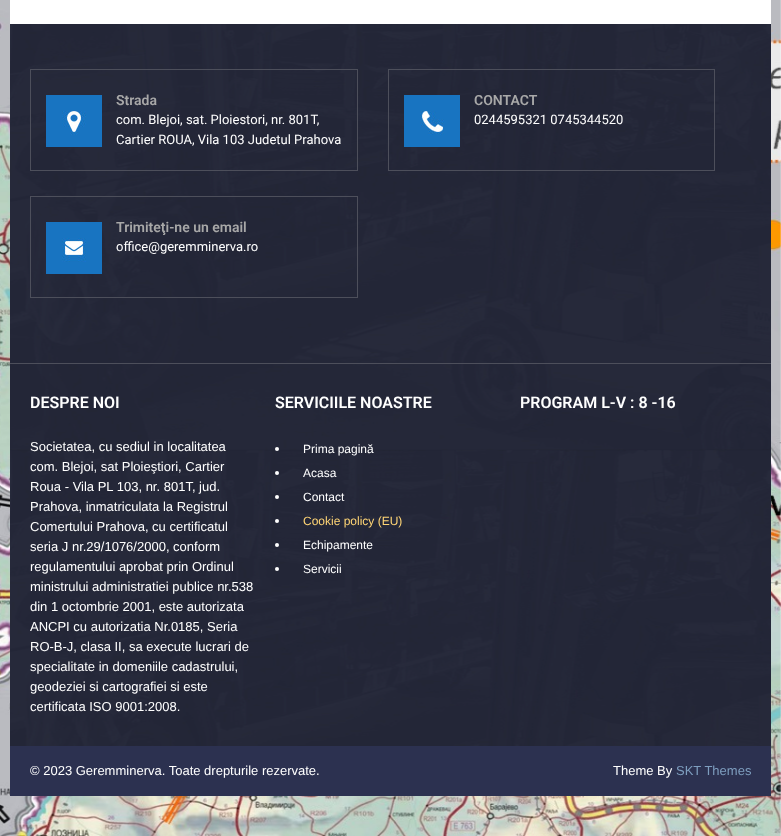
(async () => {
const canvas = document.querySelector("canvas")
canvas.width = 781
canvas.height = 836
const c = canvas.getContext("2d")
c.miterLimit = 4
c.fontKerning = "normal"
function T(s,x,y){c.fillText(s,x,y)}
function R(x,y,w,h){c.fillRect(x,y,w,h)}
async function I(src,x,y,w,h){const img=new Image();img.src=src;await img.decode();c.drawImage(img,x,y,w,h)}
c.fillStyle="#fff"
R(0,0,781,836)
await I("1.png",0,0,781,836)
R(10,0,761,24)
await I("2.png",10,24,761,722)
c.fillStyle="#4d4f5b"
R(10,363,761,1)
c.strokeStyle="#4d4f5b"
c.strokeRect(30.5,69.5,327,101)
await I("3.png",46,95,56,52)
c.font="600 14px Roboto"
c.fillStyle="#a8a8a8"
T("Strada",116,105)
c.font="13px Roboto"
c.fillStyle="#fff"
T("com. Blejoi, sat. Ploiestori, nr. 801T,",116,124)
T("Cartier ROUA, Vila 103 Judetul Prahova",116,144)
c.strokeRect(388.5,69.5,326,101)
await I("4.png",404,95,56,52)
c.font="600 14px Roboto"
c.fillStyle="#a8a8a8"
T("CONTACT",474,105)
c.font="13px Roboto"
c.fillStyle="#fff"
T("0244595321 0745344520",474,124)
c.strokeRect(30.5,196.5,327,101)
await I("5.png",46,222,56,52)
c.font="600 14px Roboto"
c.fillStyle="#a8a8a8"
T("Trimiteţi-ne un email",116,232)
c.font="13px Roboto"
c.fillStyle="#fff"
T("office@geremminerva.ro",116,251)
c.font="600 16px Roboto"
T("DESPRE NOI",30,408)
c.font="13px Liberation Sans"
T("Societatea, cu sediul in localitatea",30,451)
T("com. Blejoi, sat Ploieştiori, Cartier",30,471)
T("Roua - Vila PL 103, nr. 801T, jud.",30,491)
T("Prahova, inmatriculata la Registrul",30,511)
T("Comertului Prahova, cu certificatul",30,531)
T("seria J nr.29/1076/2000, conform",30,551)
T("regulamentului aprobat prin Ordinul",30,571)
T("ministrului administratiei publice nr.538",30,591)
T("din 1 octombrie 2001, este autorizata",30,611)
T("ANCPI cu autorizatia Nr.0185, Seria",30,631)
T("RO-B-J, clasa II, sa execute lucrari de",30,651)
T("specialitate in domeniile cadastrului,",30,671)
T("geodeziei si cartografiei si este",30,691)
T("certificata ISO 9001:2008.",30,711)
c.font="600 16px Roboto"
T("SERVICIILE NOASTRE",275,408)
c.beginPath()
c.arc(277,449,2,0,7)
c.fill()
c.font="12px Liberation Sans"
T("Prima pagină",303,453)
c.beginPath()
c.arc(277,473,2,0,7)
c.fill()
T("Acasa",303,477)
c.beginPath()
c.arc(277,497,2,0,7)
c.fill()
T("Contact",303,501)
c.beginPath()
c.arc(277,521,2,0,7)
c.fill()
c.fillStyle="#ffd575"
T("Cookie policy (EU)",303,525)
c.fillStyle="#fff"
c.beginPath()
c.arc(277,545,2,0,7)
c.fill()
T("Echipamente",303,549)
c.beginPath()
c.arc(277,569,2,0,7)
c.fill()
T("Servicii",303,573)
c.font="600 16px Roboto"
T("PROGRAM L-V : 8 -16",520,408)
c.fillStyle="#2c3150"
R(10,746,761,50)
c.font="13px Liberation Sans"
c.fillStyle="#fff"
T("© 2023 Geremminerva. Toate drepturile rezervate.",30,775)
T("Theme By",613,775)
c.fillStyle="#7e9ebf"
T("SKT Themes",676,775)
})()
